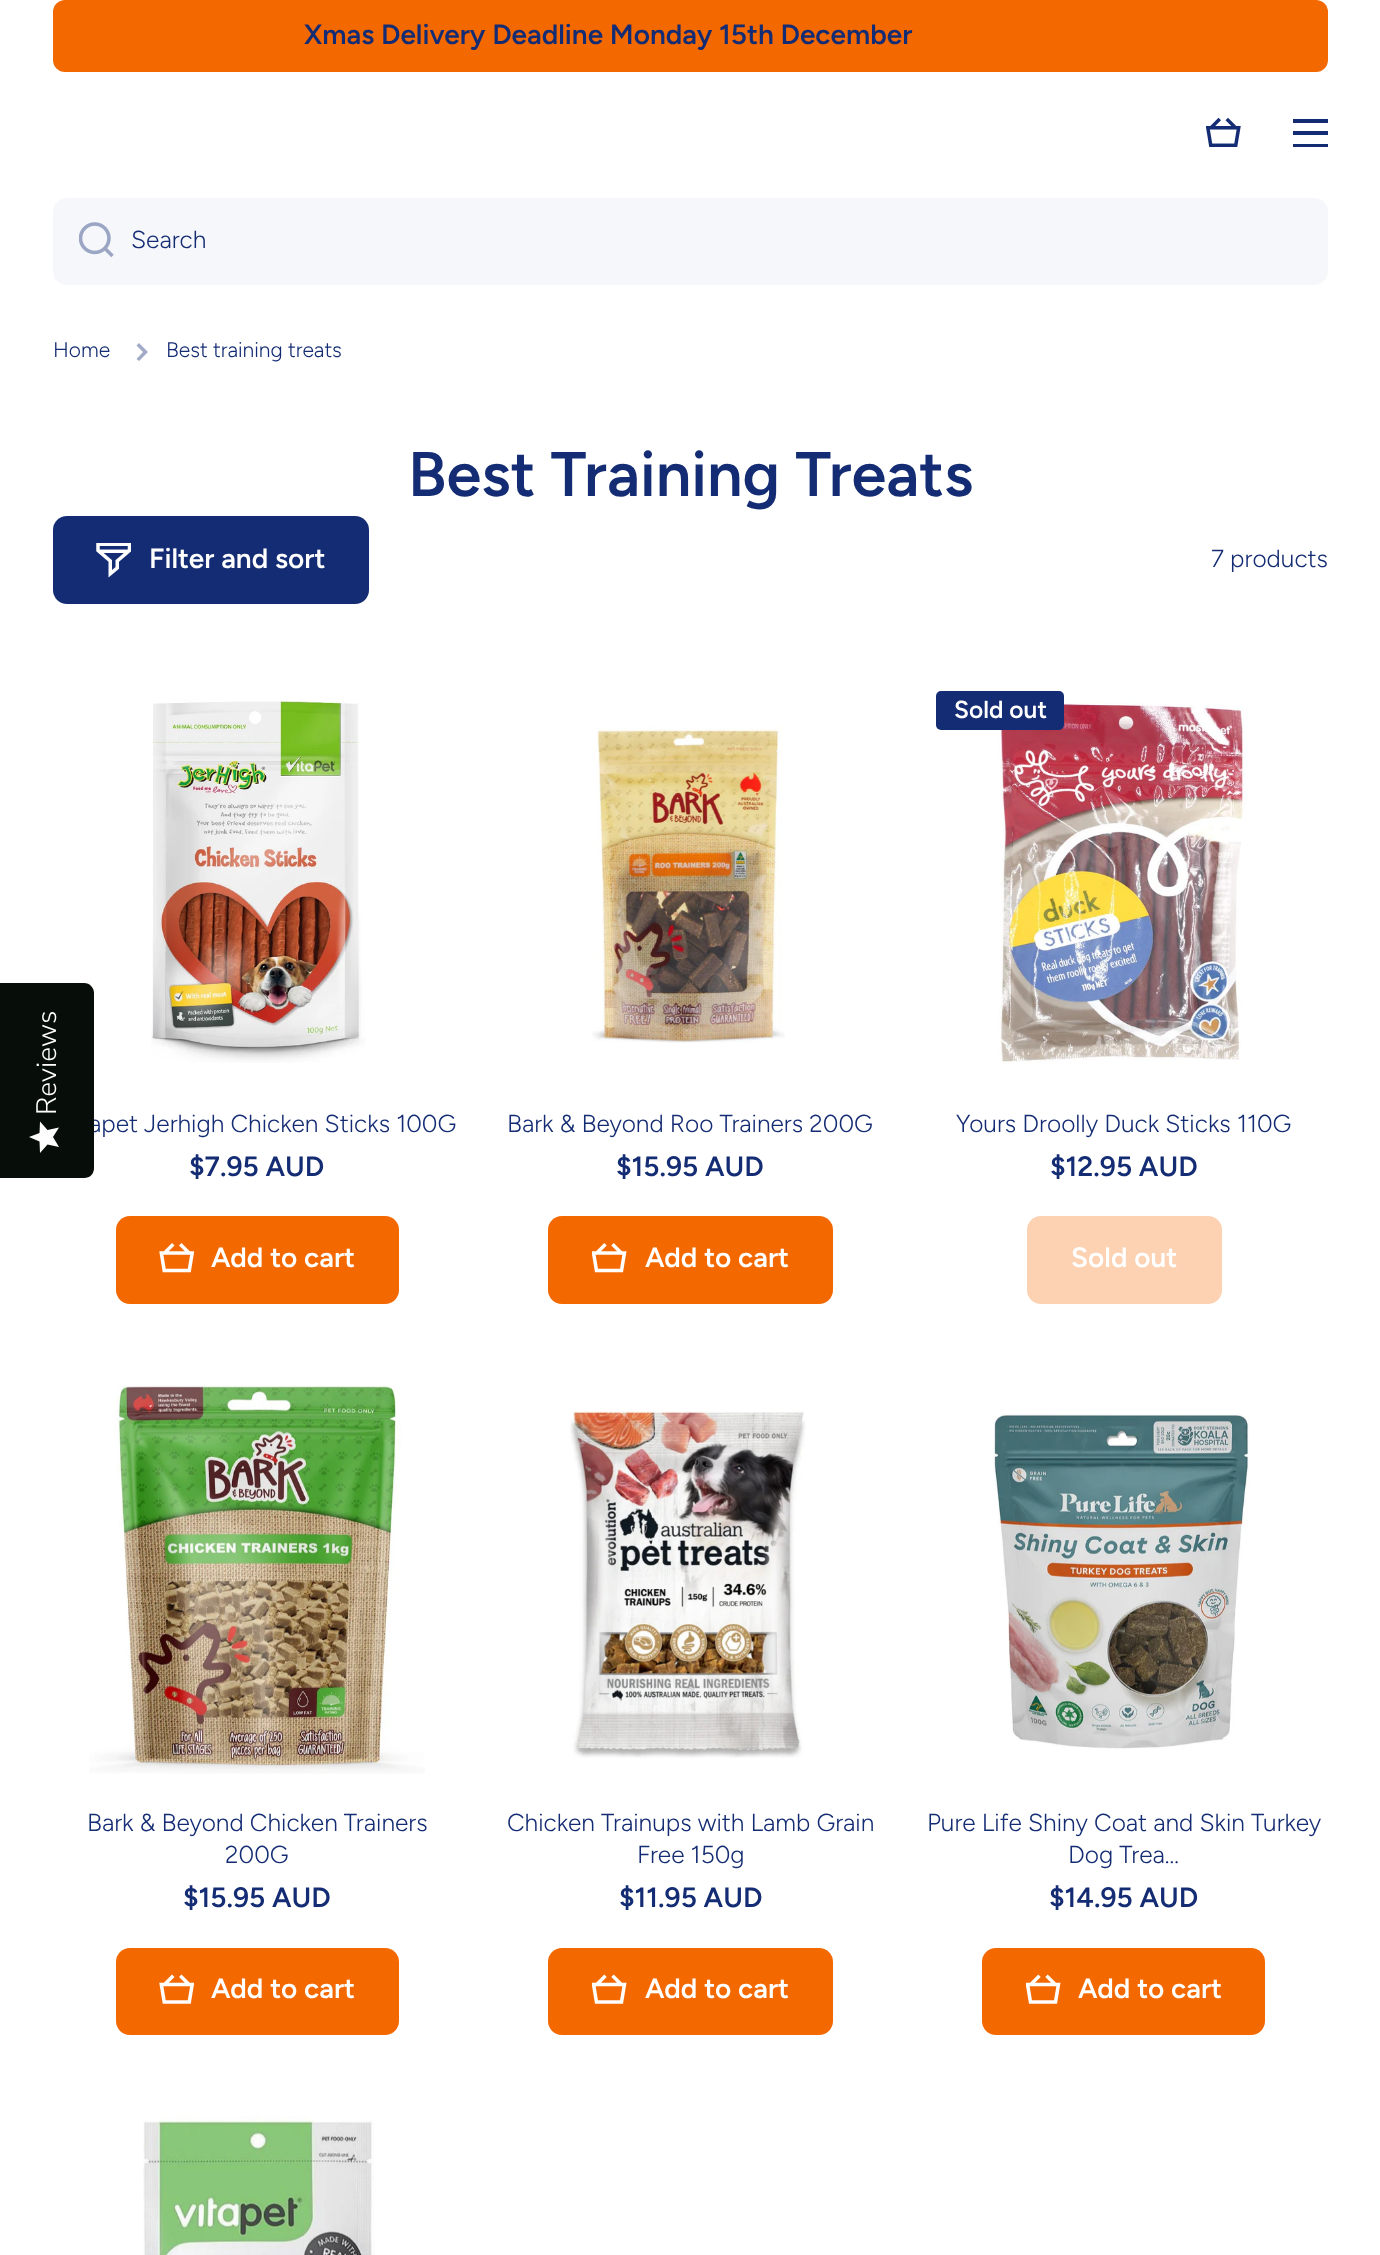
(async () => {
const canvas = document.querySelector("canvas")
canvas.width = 1380
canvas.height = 2255
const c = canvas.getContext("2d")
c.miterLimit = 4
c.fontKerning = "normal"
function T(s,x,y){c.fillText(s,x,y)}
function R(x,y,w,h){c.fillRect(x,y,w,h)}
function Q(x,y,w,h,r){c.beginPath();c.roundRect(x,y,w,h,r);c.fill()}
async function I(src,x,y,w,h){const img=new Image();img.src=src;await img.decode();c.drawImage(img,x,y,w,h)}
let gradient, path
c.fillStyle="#fff"
R(0,0,1380,2255)
c.fillStyle="#f46800"
Q(53,0,1275,72,12)
c.font="600 28px Figtree"
c.fillStyle="#142c73"
T("Xmas Delivery Deadline Monday 15th December",304,44)
await I("1.png",1206,117,35,30)
R(1293,119,35,4)
R(1293,131,35,4)
R(1293,144,35,3)
c.fillStyle="#f6f7fa"
Q(53,198,1275,87,14)
await I("2.png",79,222,35,35)
c.font="300 24.5px Figtree"
c.fillStyle="#142c73"
T("Search",131,248)
T("apet Jerhigh Chicken Sticks 100G",89,1132)
c.fillStyle="#070d08"
path = new Path2D("M0 1178v-195h84c6 0 10 5 10 10v175c0 6-4 10-10 10z")
c.fill(path)
c.font="300 28px Nunito Sans"
c.fillStyle="#fff"
c.save()
c.translate(56,1115)
c.rotate(-90 * Math.PI / 180)
c.fillText("Reviews",0,0)
c.restore()
gradient = c.createLinearGradient(29,1153,29,1121)
gradient.addColorStop(1,"#fefefe")
gradient.addColorStop(1,"#eaeaea")
c.fillStyle = gradient
path = new Path2D("M53 1137l6-9.5l-11.5 2.5l-7.5-8.5l-.5 11.5l-10.5 4l10.5 4.5l.5 11.5l7.5-8.5l11.5 2.5z")
c.fill(path)
c.font="300 21px Figtree"
c.fillStyle="#142c73"
T("Home",53,357)
c.fillStyle="#a1abc7"
path = new Path2D("M143 352l-6.5-6.5l2.5-2.5l9 9l-9 9l-2.5-2z")
c.fill(path,"evenodd")
c.fillStyle="#142c73"
T("Best training treats",166,357)
c.font="600 63px Figtree"
T("Best Training Treats",408,496)
Q(53,516,316,88,14)
await I("3.png",96,543,35,35)
c.font="600 28px Figtree"
c.fillStyle="#fff"
T("Filter and sort",149,568)
c.font="300 24.5px Figtree"
c.fillStyle="#142c73"
T("7 products",1211,567)
await I("4.png",151,700,215,363)
c.font="600 28px Figtree"
T("$7.95 AUD",189,1176)
c.fillStyle="#f46800"
Q(116,1216,283,88,14)
await I("5.png",159,1243,35,30)
c.fillStyle="#fff"
T("Add to cart",211,1267)
await I("6.png",592,726,193,317)
c.font="300 24.5px Figtree"
c.fillStyle="#142c73"
T("Bark & Beyond Roo Trainers 200G",507,1132)
c.font="600 28px Figtree"
T("$15.95 AUD",616,1176)
c.fillStyle="#f46800"
Q(548,1216,285,88,14)
await I("7.png",592,1243,35,30)
c.fillStyle="#fff"
T("Add to cart",645,1267)
await I("8.png",998,700,248,365)
c.fillStyle="#142c73"
Q(936,691,128,39,5)
c.font="600 24.5px Figtree"
c.fillStyle="#fff"
T("Sold out",954,718)
c.font="300 24.5px Figtree"
c.fillStyle="#142c73"
T("Yours Droolly Duck Sticks 110G",956,1132)
c.font="600 28px Figtree"
T("$12.95 AUD",1050,1176)
c.fillStyle="#fcd2b3"
Q(1027,1216,195,88,14)
c.fillStyle="#fff"
T("Sold out",1071,1267)
await I("9.png",89,1385,336,389)
c.font="300 24.5px Figtree"
c.fillStyle="#142c73"
T("Bark & Beyond Chicken Trainers",87,1831)
T("200G",225,1863)
c.font="600 28px Figtree"
T("$15.95 AUD",183,1907)
c.fillStyle="#f46800"
Q(116,1948,283,87,14)
await I("10.png",159,1974,35,30)
c.fillStyle="#fff"
T("Add to cart",211,1998)
await I("11.png",570,1411,236,347)
c.font="300 24.5px Figtree"
c.fillStyle="#142c73"
T("Chicken Trainups with Lamb Grain",507,1831)
T("Free 150g",637,1863)
c.font="600 28px Figtree"
T("$11.95 AUD",619,1907)
c.fillStyle="#f46800"
Q(548,1948,285,87,14)
await I("12.png",592,1974,35,30)
c.fillStyle="#fff"
T("Add to cart",645,1998)
await I("13.png",993,1413,257,336)
c.font="300 24.5px Figtree"
c.fillStyle="#142c73"
T("Pure Life Shiny Coat and Skin Turkey",927,1831)
T("Dog Trea...",1068,1863)
c.font="600 28px Figtree"
T("$14.95 AUD",1049,1907)
c.fillStyle="#f46800"
Q(982,1948,283,87,14)
await I("12.png",1026,1974,35,30)
c.fillStyle="#fff"
T("Add to cart",1078,1998)
await I("14.png",143,2116,232,139)
})()
